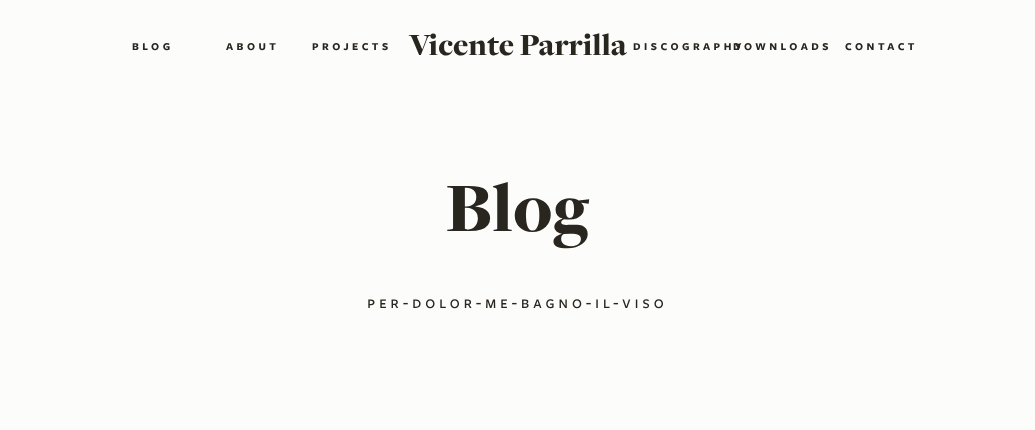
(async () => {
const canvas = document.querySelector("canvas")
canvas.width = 1035
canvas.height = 430
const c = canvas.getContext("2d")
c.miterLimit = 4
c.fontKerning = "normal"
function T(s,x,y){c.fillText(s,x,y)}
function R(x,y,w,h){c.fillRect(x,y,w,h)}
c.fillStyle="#fcfcfb"
R(0,0,1035,430)
c.font="900 32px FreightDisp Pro"
c.fillStyle="#29251f"
T("Vicente Parrilla",409,55)
c.letterSpacing="3.5px"
c.font="bold 11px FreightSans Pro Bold"
T("BLOG",132,50)
T("ABOUT",226,50)
T("PROJECTS",312,50)
T("DISCOGRAPHY",633,50)
T("DOWNLOADS",733,50)
T("CONTACT",845,50)
c.letterSpacing="0px"
c.font="900 72px FreightDisp Pro"
T("Blog",446,231)
c.letterSpacing="3.6px"
c.font="500 18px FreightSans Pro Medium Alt"
T("per-dolor-me-bagno-il-viso",367,308)
})()
